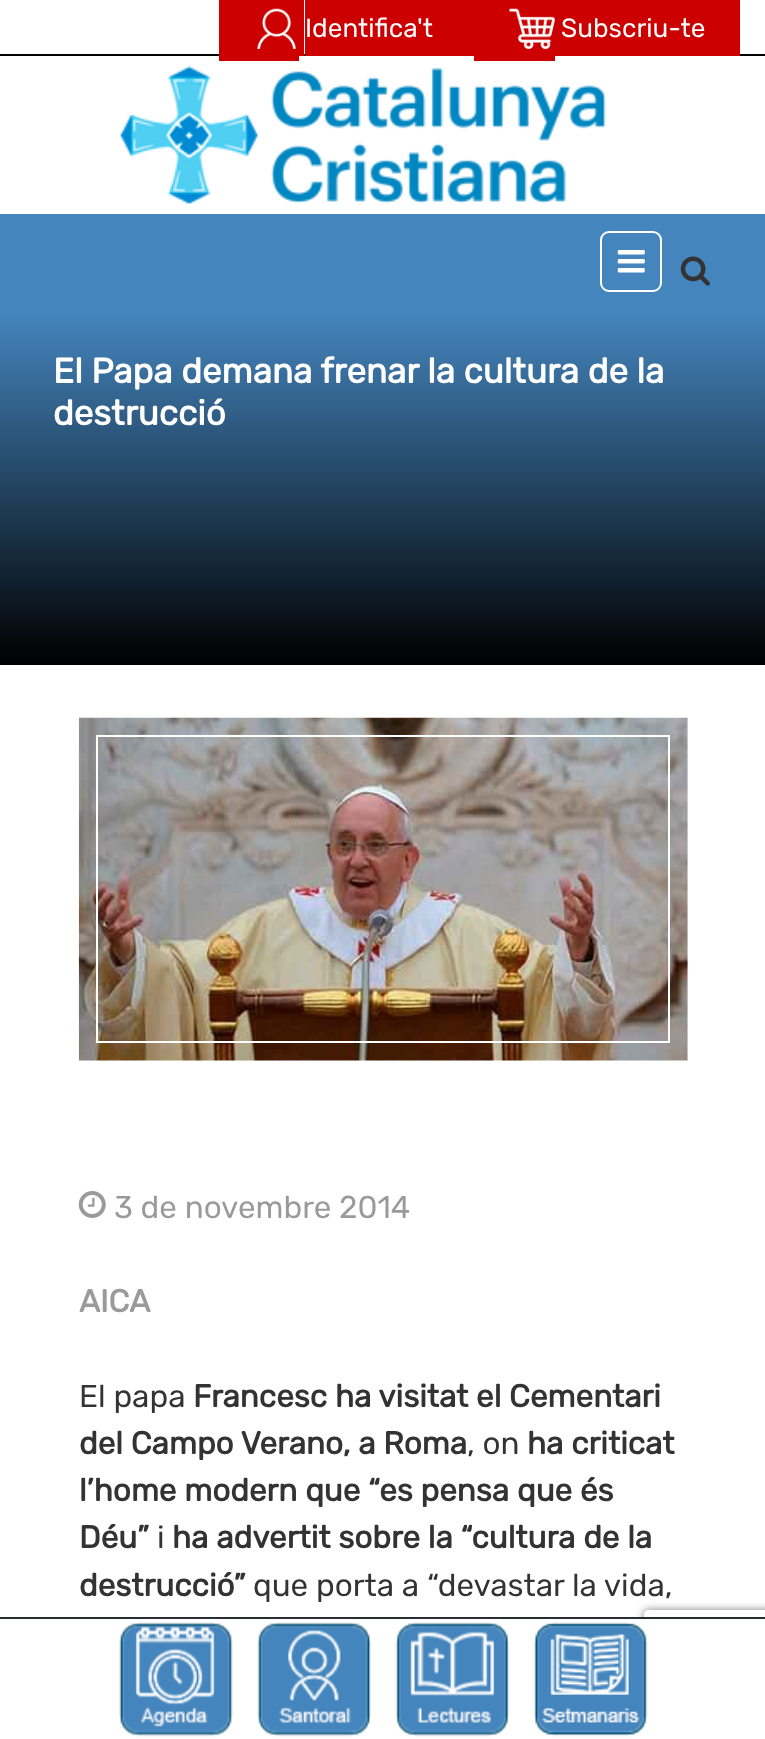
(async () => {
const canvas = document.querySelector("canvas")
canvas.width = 765
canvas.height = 1739
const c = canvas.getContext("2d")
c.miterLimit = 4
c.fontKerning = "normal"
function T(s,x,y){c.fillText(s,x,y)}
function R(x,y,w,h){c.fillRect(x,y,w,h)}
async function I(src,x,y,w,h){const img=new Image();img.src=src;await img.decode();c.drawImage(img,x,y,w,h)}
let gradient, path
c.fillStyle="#fff"
R(0,0,765,1739)
c.fillStyle="#000"
R(0,54,765,2)
c.fillStyle="#c00"
R(219,0,80,61)
await I("1.png",257,8,39,41)
R(305,0,169,56)
c.font="26.25px Rubik"
c.fillStyle="#fff"
T("Identifica't",305,37)
c.fillStyle="#c00"
R(299,0,5,56)
R(474,0,81,61)
await I("2.png",509,8,46,41)
R(555,0,185,56)
c.fillStyle="#fff"
T("Subscriu-te",561,37)
await I("3.png",120,66,486,139)
c.fillStyle="#4485bd"
R(0,214,765,101)
c.beginPath()
c.roundRect(601,232,60,59,8)
c.strokeStyle="#fff"
c.lineWidth=2
c.stroke()
await I("4.png",617,250,28,23)
await I("5.png",680,256,30,30)
gradient = c.createLinearGradient(383,315,383,665)
gradient.addColorStop(0,"#4484bc")
gradient.addColorStop(1,"#000")
c.fillStyle = gradient
R(0,315,765,350)
c.font="bold 35px Rubik"
c.fillStyle="#fff"
T("El Papa demana frenar la cultura de la",53,383)
T("destrucció",53,425)
await I("6.png",78,717,610,344)
c.strokeRect(97,736,572,306)
await I("7.png",78,1191,28,27)
c.font="31.5px Rubik"
c.fillStyle="#9a9a9a"
T("3 de novembre 2014",114,1218)
c.font="bold 31.5px Rubik"
T("AICA",79,1312)
c.font="31.5px Rubik"
c.fillStyle="#333"
T("El papa",79,1407)
c.font="bold 31.5px Rubik"
T("Francesc ha visitat el Cementari",193,1407)
T("del Campo Verano, a Roma",79,1454)
c.font="31.5px Rubik"
T(", on",467,1454)
c.font="bold 31.5px Rubik"
T("ha criticat",527,1454)
T("l’home modern que “es pensa que és",79,1501)
T("Déu”",79,1548)
c.font="31.5px Rubik"
T("i",157,1548)
c.font="bold 31.5px Rubik"
T("ha advertit sobre la “cultura de la",172,1548)
T("destrucció”",79,1596)
c.save()
path = new Path2D("M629 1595h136v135h-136zm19 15h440c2 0 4 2 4 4v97c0 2-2 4-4 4h-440c-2 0-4-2-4-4v-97c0-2 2-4 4-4z")
c.clip(path,"evenodd")
c.fillStyle="#808080"
c.filter="blur(4.5px)"
c.beginPath()
c.roundRect(644,1610,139,105,4)
c.fill()
c.filter="none"
c.restore()
c.font="31.5px Rubik"
T("que porta a “devastar la vida,",253,1596)
c.fillStyle="#fff"
R(635,1619,130,105)
c.fillStyle="#272f32"
R(0,1617,765,2)
await I("8.png",119,1622,114,115)
await I("9.png",257,1622,114,115)
await I("10.png",395,1622,115,115)
await I("11.png",533,1622,115,115)
})()
